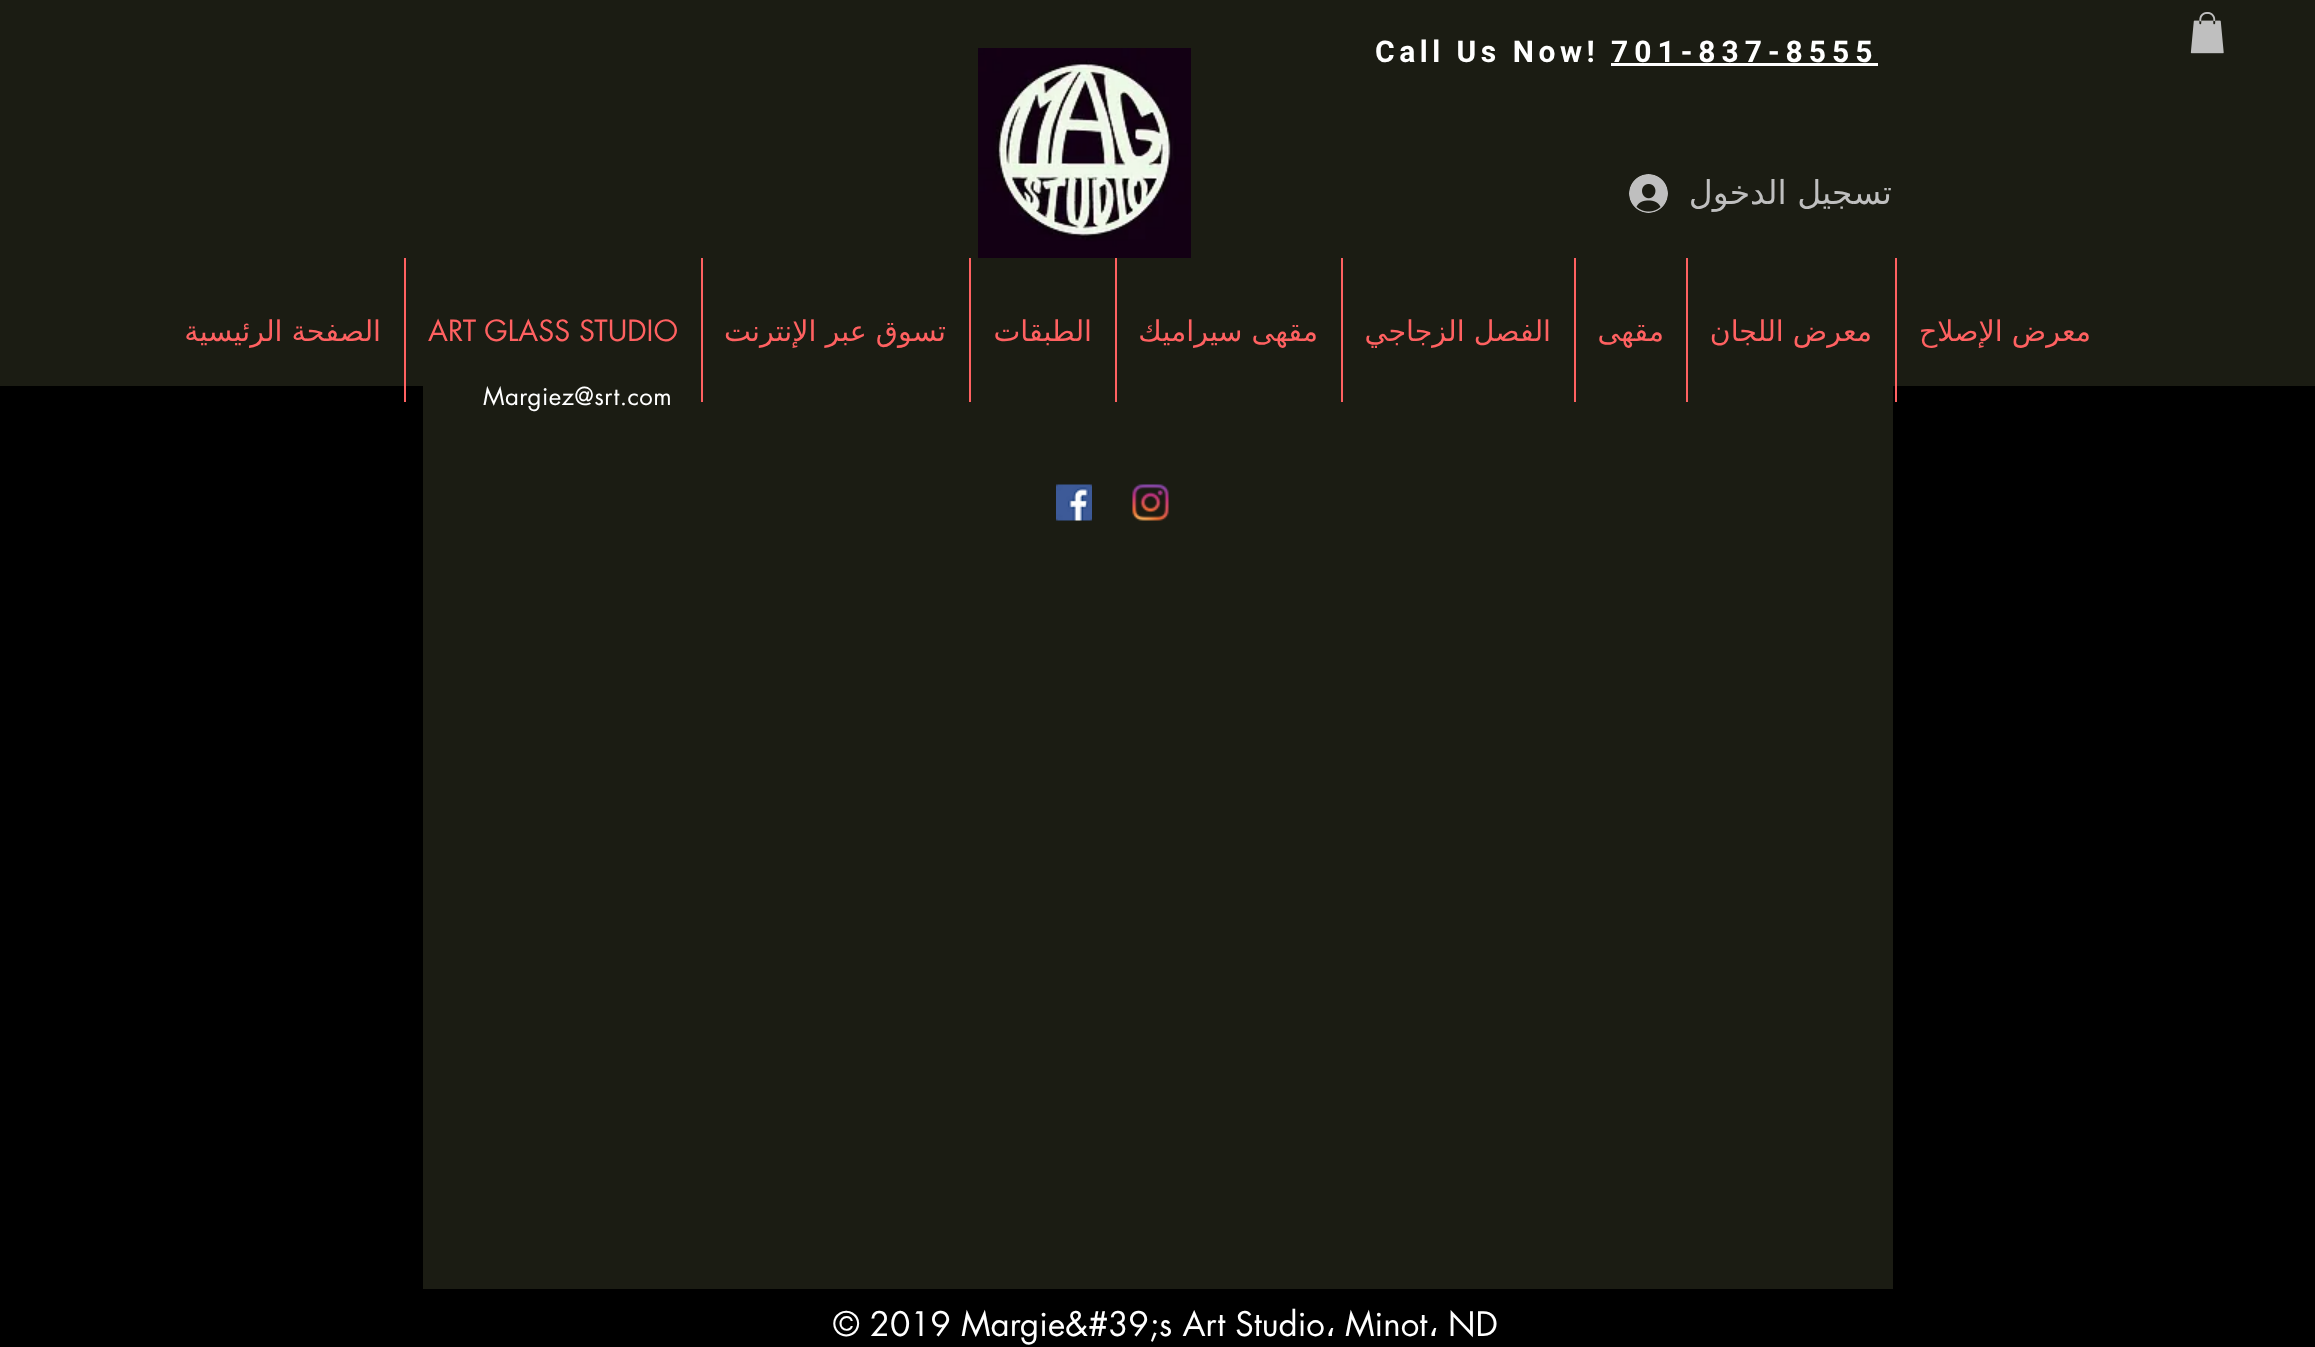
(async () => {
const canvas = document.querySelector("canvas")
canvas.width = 2315
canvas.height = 1347
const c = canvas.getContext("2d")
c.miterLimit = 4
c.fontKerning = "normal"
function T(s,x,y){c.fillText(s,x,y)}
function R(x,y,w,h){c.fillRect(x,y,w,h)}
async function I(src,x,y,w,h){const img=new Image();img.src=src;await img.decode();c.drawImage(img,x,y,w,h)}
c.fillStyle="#000"
R(0,0,2315,1347)
c.fillStyle="#1b1c13"
R(423,386,1470,903)
c.letterSpacing="0.5px"
c.font="24px futura"
c.fillStyle="#fff"
T("Margiez@srt.com",483,405)
c.fillStyle="#1b1c13"
R(0,0,2315,386)
await I("1.png",2190,12,34,42)
c.letterSpacing="6px"
c.font="bold 30px Roboto"
c.fillStyle="#fff"
T("701-837-8555",1611,62)
R(1611,63,267,3)
c.letterSpacing="4.5px"
T("Call Us Now!",1375,62)
await I("2.png",978,48,213,210)
c.letterSpacing="0px"
c.direction="rtl"
c.font="33px DejaVu Sans"
c.fillStyle="#bfbfbf"
T("تسجيل الدخول",1892,204)
await I("3.png",1629,174,39,39)
c.fillStyle="#ff6161"
R(1895,258,2,144)
c.font="28.5px DejaVu Sans"
T("معرض الإصلاح",2091,341)
R(1686,258,2,144)
T("معرض اللجان",1872,341)
R(1574,258,2,144)
T("مقهى",1664,341)
R(1341,258,2,144)
T("الفصل الزجاجي",1551,341)
R(1115,258,2,144)
T("مقهى سيراميك",1318,341)
R(969,258,2,144)
T("الطبقات",1092,341)
R(701,258,2,144)
T("تسوق عبر الإنترنت",946,341)
R(404,258,2,144)
c.direction="ltr"
c.font="28.5px futura"
T("ART GLASS STUDIO",428,341)
c.direction="rtl"
c.font="28.5px DejaVu Sans"
T("الصفحة الرئيسية",381,341)
await I("4.png",1132,484,37,37)
await I("5.png",1056,484,36,37)
c.direction="ltr"
c.font="33px futura"
c.fillStyle="#fff"
T("ND",1448,1336)
c.font="33px DejaVu Sans"
T("،",1428,1336)
c.font="33px futura"
T("Minot",1345,1336)
c.font="33px DejaVu Sans"
T("،",1325,1336)
c.font="33px futura"
T("© 2019 Margie&#39;s Art Studio",833,1336)
})()
